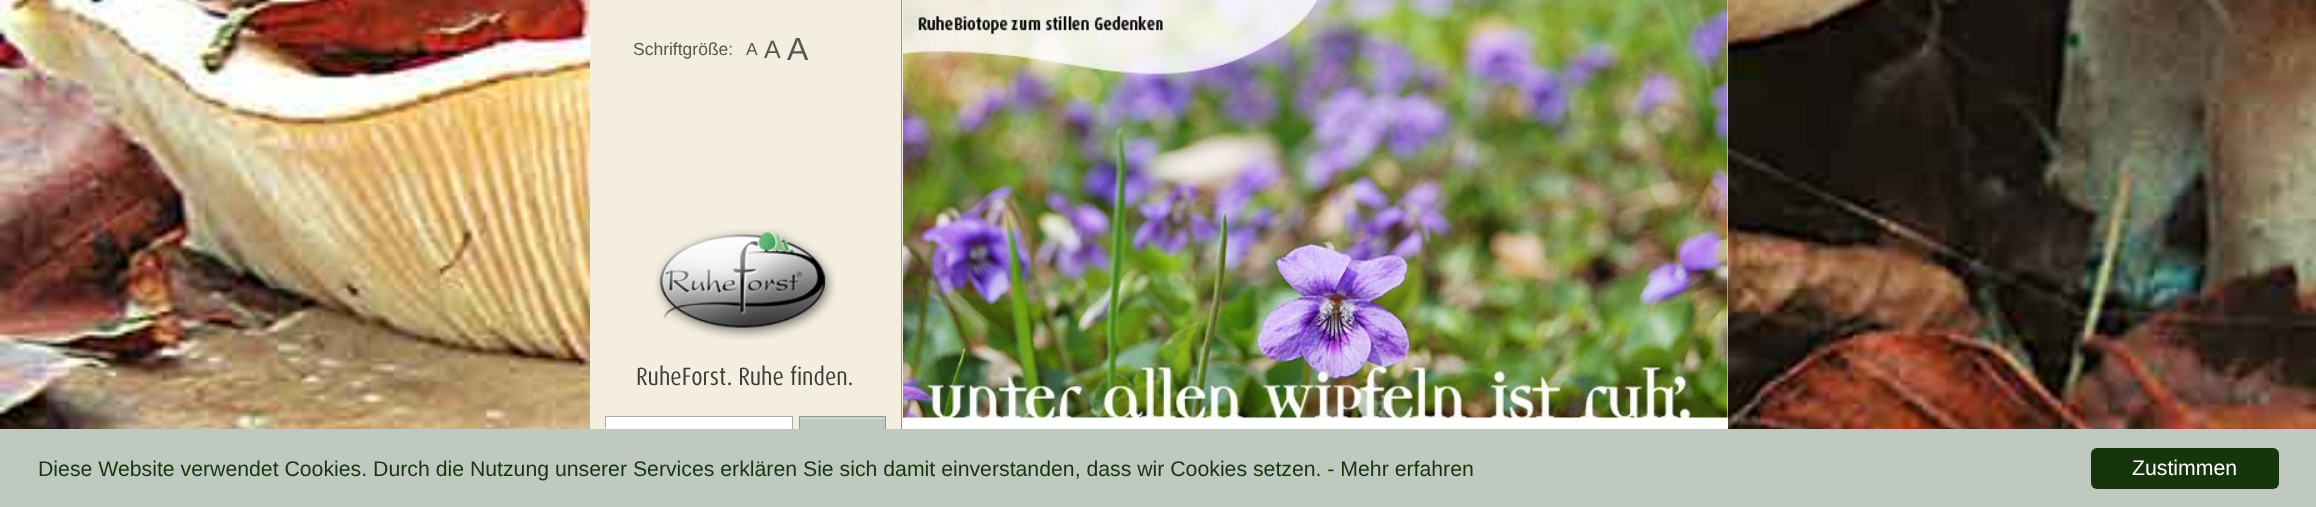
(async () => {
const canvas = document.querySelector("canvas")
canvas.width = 2316
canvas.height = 507
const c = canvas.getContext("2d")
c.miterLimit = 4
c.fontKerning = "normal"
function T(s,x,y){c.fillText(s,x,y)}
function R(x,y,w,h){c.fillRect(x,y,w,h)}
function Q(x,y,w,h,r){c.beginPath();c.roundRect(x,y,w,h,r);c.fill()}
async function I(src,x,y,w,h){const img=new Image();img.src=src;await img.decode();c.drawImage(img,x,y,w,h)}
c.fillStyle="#fff"
R(0,0,2316,507)
await I("1.png",0,0,2316,429)
c.fillStyle="#f3eedf"
R(590,0,313,429)
c.fillStyle="#99968d"
R(901,0,1,429)
c.font="17.5px Liberation Sans"
c.fillStyle="#515952"
T("Schriftgröße:",633,55)
T("A",746,55)
c.font="25px Liberation Sans"
T("A",764,58)
c.font="32px Liberation Sans"
T("A",787,60)
await I("2.png",655,228,181,112)
c.font="25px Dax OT"
c.fillStyle="#3e3d39"
T("RuheForst. Ruhe finden.",636,385)
c.fillStyle="#fff"
R(606,417,186,12)
c.strokeStyle="#aeaba1"
c.strokeRect(605.5,416.5,187,37)
c.fillStyle="#bec9bf"
R(800,417,85,12)
c.fillStyle="#d2e6d2"
R(800,418,85,1)
c.strokeStyle="#9a9890"
c.strokeRect(799.5,416.5,86,37)
c.fillStyle="#fff"
R(903,0,825,429)
await I("3.png",903,0,825,418)
c.fillStyle="#c0c9c0"
R(0,429,2316,78)
c.font="21.25px Liberation Sans"
c.fillStyle="#15350d"
T("Diese Website verwendet Cookies. Durch die Nutzung unserer Services erklären Sie sich damit einverstanden, dass wir Cookies setzen. - Mehr erfahren",38,476)
Q(2091,448,188,41,6)
c.fillStyle="#fff"
T("Zustimmen",2132,475)
})()
